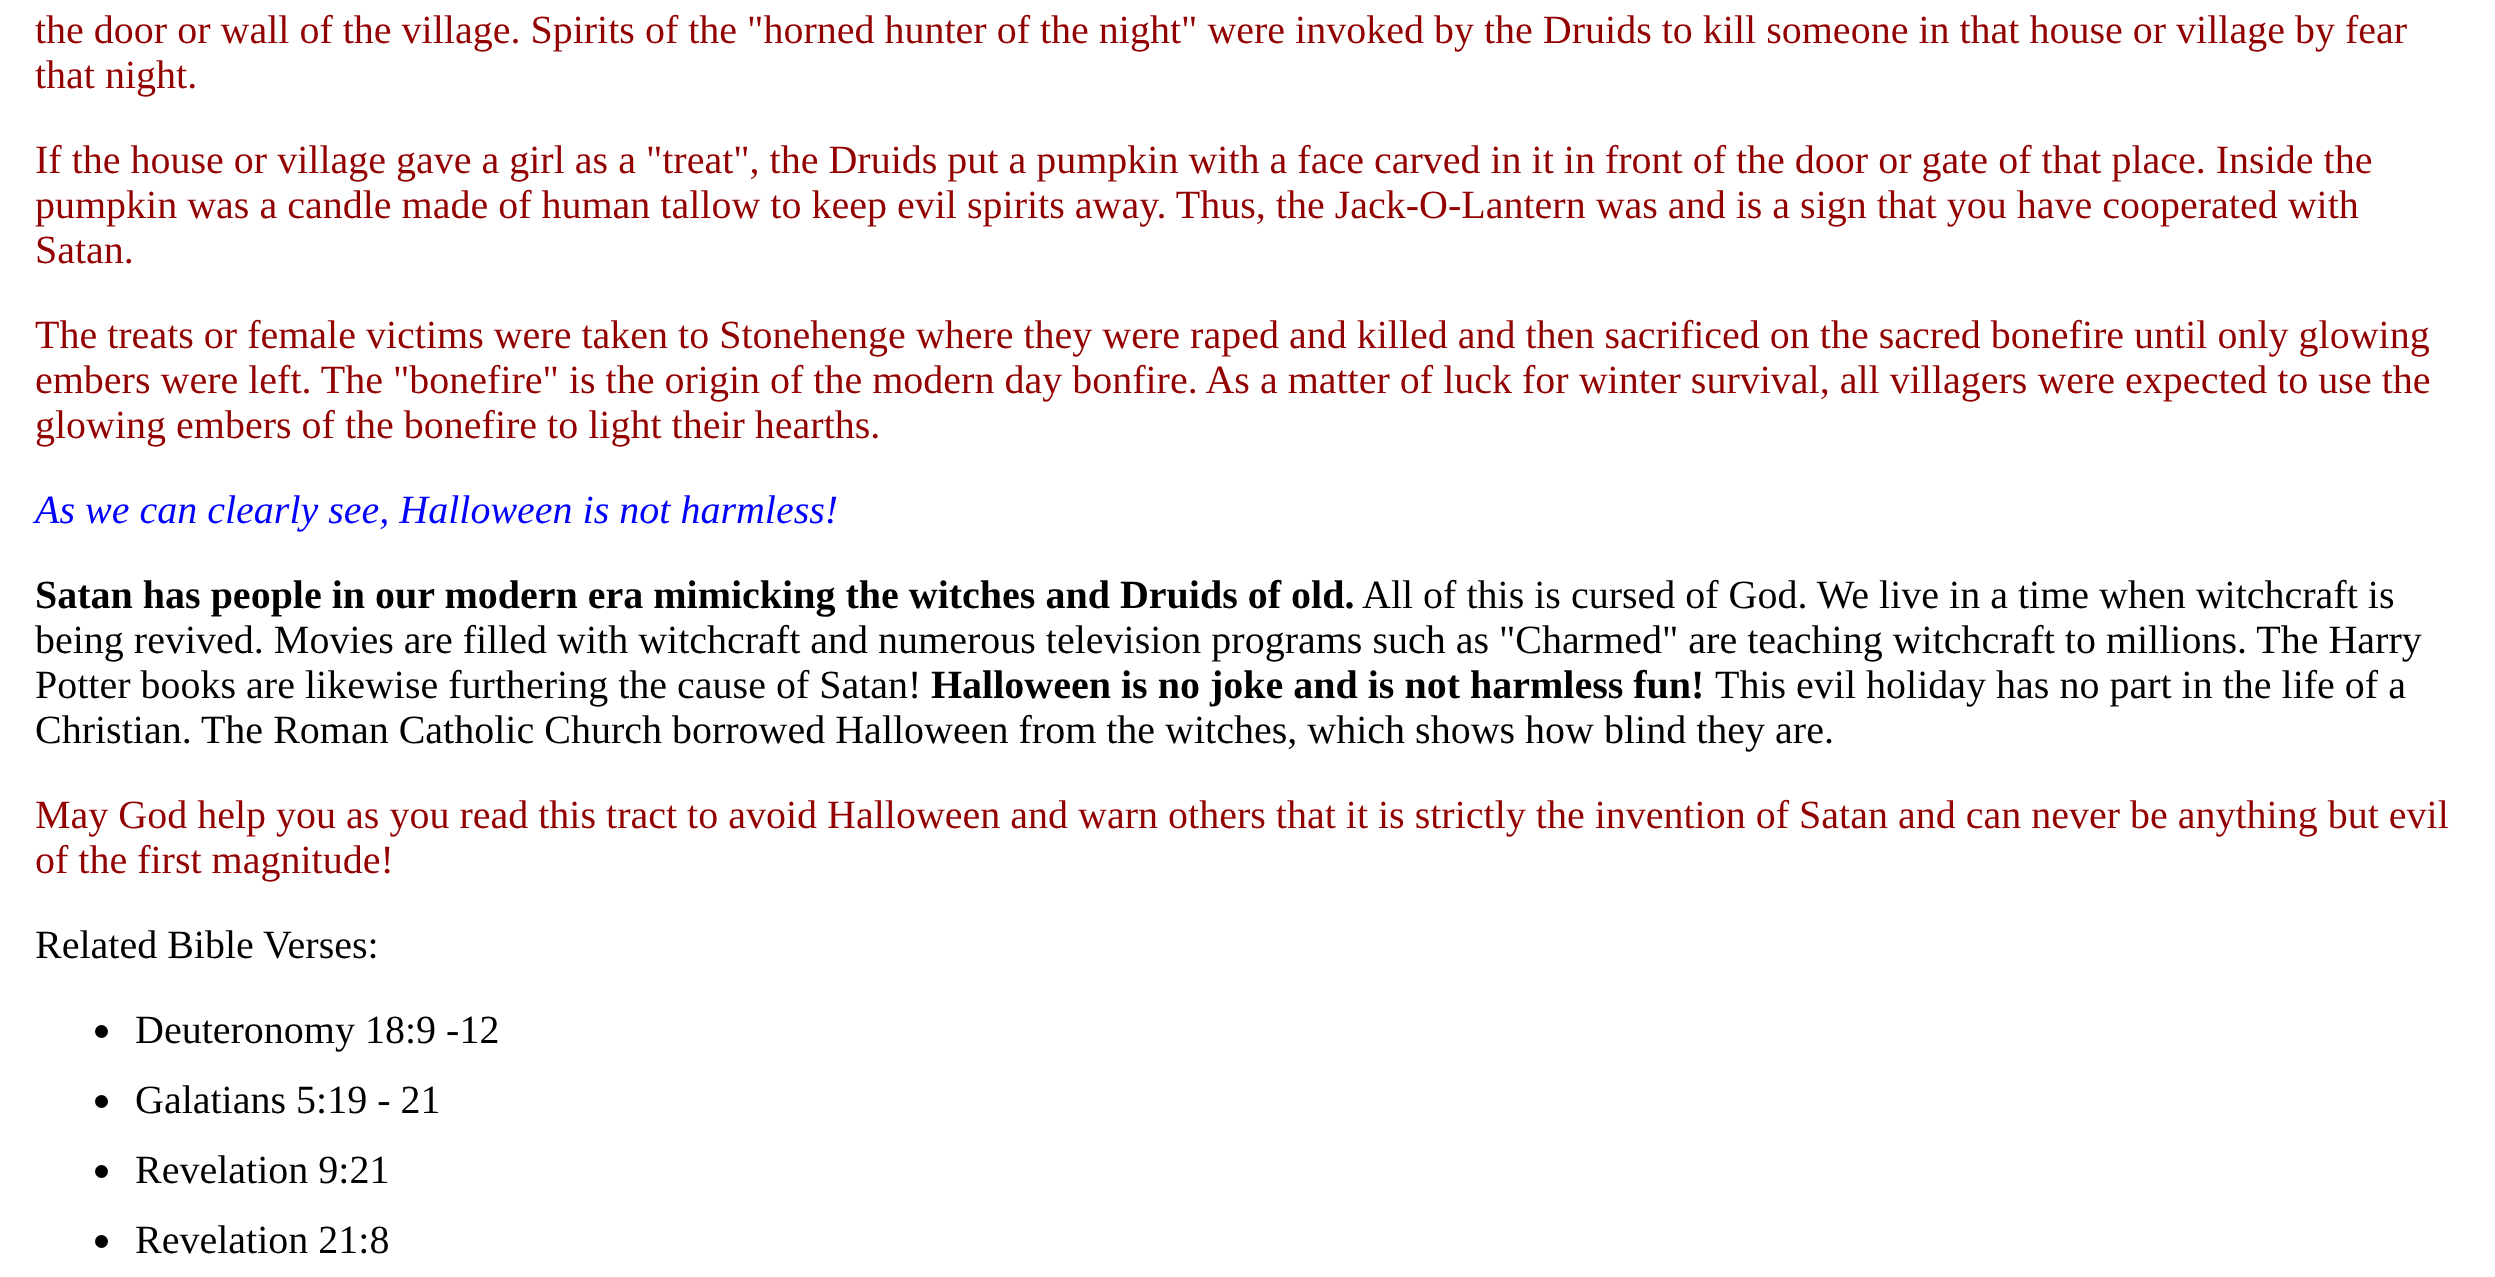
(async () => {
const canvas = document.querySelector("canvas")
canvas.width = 2495
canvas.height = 1277
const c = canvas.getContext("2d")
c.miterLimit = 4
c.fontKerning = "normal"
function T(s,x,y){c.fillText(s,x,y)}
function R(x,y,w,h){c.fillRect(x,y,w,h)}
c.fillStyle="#fff"
R(0,0,2495,1277)
c.font="40px Liberation Serif"
c.fillStyle="#930000"
T("the door or wall of the village. Spirits of the \"horned hunter of the night\" were invoked by the Druids to kill someone in that house or village by fear",35,43)
T("that night.",35,88)
T("If the house or village gave a girl as a \"treat\", the Druids put a pumpkin with a face carved in it in front of the door or gate of that place. Inside the",35,173)
T("pumpkin was a candle made of human tallow to keep evil spirits away. Thus, the Jack-O-Lantern was and is a sign that you have cooperated with",35,218)
T("Satan.",35,263)
T("The treats or female victims were taken to Stonehenge where they were raped and killed and then sacrificed on the sacred bonefire until only glowing",35,348)
T("embers were left. The \"bonefire\" is the origin of the modern day bonfire. As a matter of luck for winter survival, all villagers were expected to use the",35,393)
T("glowing embers of the bonefire to light their hearths.",35,438)
c.font="italic 40px Liberation Serif"
c.fillStyle="#00f"
T("As we can clearly see, Halloween is not harmless!",35,523)
c.font="bold 40px Liberation Serif"
c.fillStyle="#000"
T("Satan has people in our modern era mimicking the witches and Druids of old.",35,608)
c.font="40px Liberation Serif"
T("All of this is cursed of God. We live in a time when witchcraft is",1362,608)
T("being revived. Movies are filled with witchcraft and numerous television programs such as \"Charmed\" are teaching witchcraft to millions. The Harry",35,653)
T("Potter books are likewise furthering the cause of Satan!",35,698)
c.font="bold 40px Liberation Serif"
T("Halloween is no joke and is not harmless fun!",931,698)
c.font="40px Liberation Serif"
T("This evil holiday has no part in the life of a",1715,698)
T("Christian. The Roman Catholic Church borrowed Halloween from the witches, which shows how blind they are.",35,743)
c.fillStyle="#930000"
T("May God help you as you read this tract to avoid Halloween and warn others that it is strictly the invention of Satan and can never be anything but evil",35,828)
T("of the first magnitude!",35,873)
c.fillStyle="#000"
T("Related Bible Verses:",35,958)
c.beginPath()
c.arc(101.5,1031.5,6.5,0,7)
c.fill()
T("Deuteronomy 18:9 -12",135,1043)
c.beginPath()
c.arc(101.5,1101.5,6.5,0,7)
c.fill()
T("Galatians 5:19 - 21",135,1113)
c.beginPath()
c.arc(101.5,1171.5,6.5,0,7)
c.fill()
T("Revelation 9:21",135,1183)
c.beginPath()
c.arc(101.5,1241.5,6.5,0,7)
c.fill()
T("Revelation 21:8",135,1253)
})()
